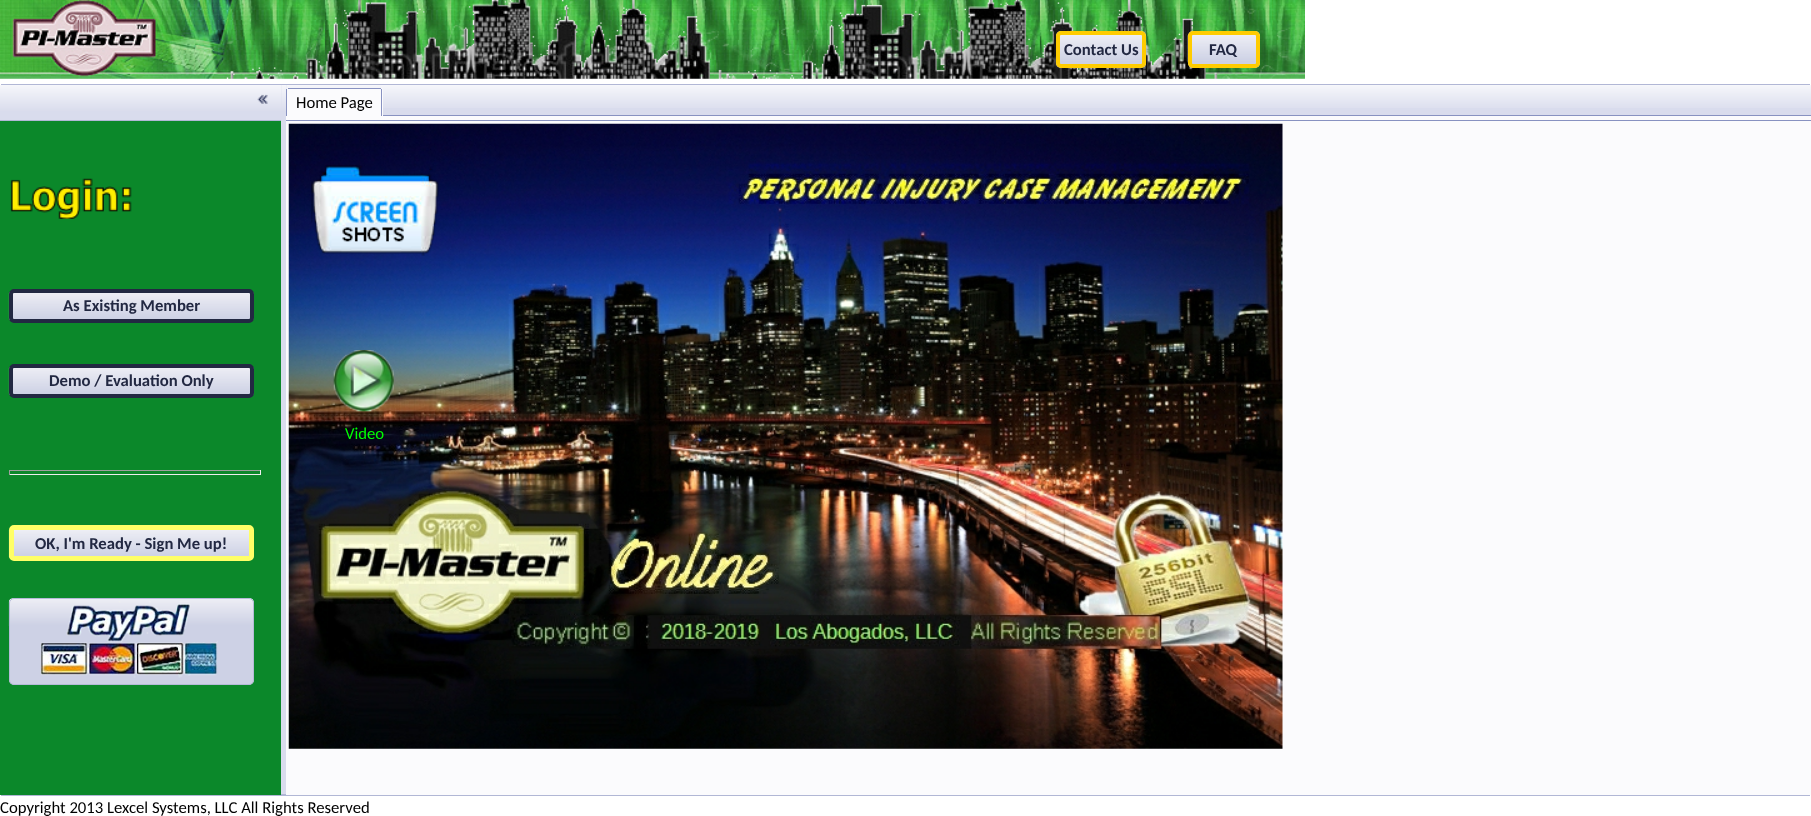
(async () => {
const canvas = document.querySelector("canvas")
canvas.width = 1811
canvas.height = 816
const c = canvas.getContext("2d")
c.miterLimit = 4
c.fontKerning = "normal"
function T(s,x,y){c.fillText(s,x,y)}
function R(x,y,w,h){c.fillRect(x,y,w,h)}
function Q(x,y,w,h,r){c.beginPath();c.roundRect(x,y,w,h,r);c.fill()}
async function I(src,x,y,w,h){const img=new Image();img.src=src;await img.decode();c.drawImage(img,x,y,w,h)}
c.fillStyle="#fff"
R(0,0,1811,816)
await I("1.png",0,0,1305,79)
await I("2.png",13,35,2,1)
c.fillStyle="#b1b7d5"
R(1,84,1809,1)
R(1,795,1809,1)
c.fillStyle="#0b882a"
R(0,121,281,674)
c.fillStyle="#cdd1e5"
Q(1056,31,90,37,5)
await I("3.png",1056,35,91,28)
c.beginPath()
c.roundRect(1058,33,86,33,3)
c.strokeStyle="#fc0"
c.lineWidth=4
c.stroke()
c.font="bold 16.7px Carlito"
c.fillStyle="#222842"
T("Contact Us",1064,55)
c.fillStyle="#cdd1e5"
Q(1188,31,72,37,5)
await I("4.png",1187,35,73,28)
c.beginPath()
c.roundRect(1190,33,68,33,3)
c.stroke()
c.fillStyle="#222842"
T("FAQ",1209,55)
await I("5.png",10,178,122,41)
await I("6.png",8,292,246,28)
c.beginPath()
c.roundRect(11,291,241,30,3)
c.strokeStyle="#222842"
c.stroke()
T("As Existing Member",63,311)
await I("6.png",8,367,246,28)
c.beginPath()
c.roundRect(11,366,241,30,3)
c.stroke()
T("Demo / Evaluation Only",49,386)
c.fillStyle="#9f9f9f"
R(9,470,252,1)
c.fillStyle="#eee"
R(260,470,1,5)
R(9,474,252,1)
c.fillStyle="#9f9f9f"
R(9,470,1,5)
await I("7.png",8,530,246,28)
c.beginPath()
c.roundRect(11.5,527.5,240,31,2.5)
c.strokeStyle="#ffff67"
c.lineWidth=5
c.stroke()
c.fillStyle="#222842"
T("OK, I'm Ready - Sign Me up!",35,549)
c.fillStyle="#cdd1e5"
Q(9,598,245,87,5)
await I("8.png",8,598,246,28)
c.beginPath()
c.roundRect(9.5,598.5,244,86,4.5)
c.strokeStyle="#b5bad7"
c.lineWidth=1
c.stroke()
await I("9.png",40,601,178,77)
c.fillStyle="#d9dced"
R(0,112,281,8)
await I("10.png",0,85,281,28)
c.fillStyle="#b1b7d5"
R(0,120,281,1)
await I("11.png",257,94,11,10)
c.fillStyle="#d9dced"
R(281,85,5,710)
await I("12.png",281,85,5,28)
c.fillStyle="#b1b7d5"
R(281,794,5,1)
c.fillStyle="#fbfbfd"
R(286,121,1525,674)
c.fillStyle="#d9dced"
R(286,85,1525,30)
await I("13.png",286,85,1525,23)
c.fillStyle="#8892c1"
R(286,120,1525,1)
c.fillStyle="#fbfbfd"
c.beginPath()
c.roundRect(286,88,97,28,[2.5,2.5,0,0])
c.fill()
c.fillStyle="#8892c1"
R(288,88,93,1)
R(381,89,1,27)
R(286,89,1,27)
c.font="16.7px Carlito"
c.fillStyle="#000"
T("Home Page",296,108)
c.fillStyle="#fbfbfd"
R(286,116,1525,4)
c.fillStyle="#8892c1"
R(383,115,1428,1)
await I("14.png",288,123,995,626)
await I("15.png",311,165,128,91)
await I("16.png",333,350,61,62)
c.fillStyle="#0f0"
T("Video",345,439)
c.fillStyle="#000"
T("Copyright 2013 Lexcel Systems, LLC All Rights Reserved",0,813)
})()
